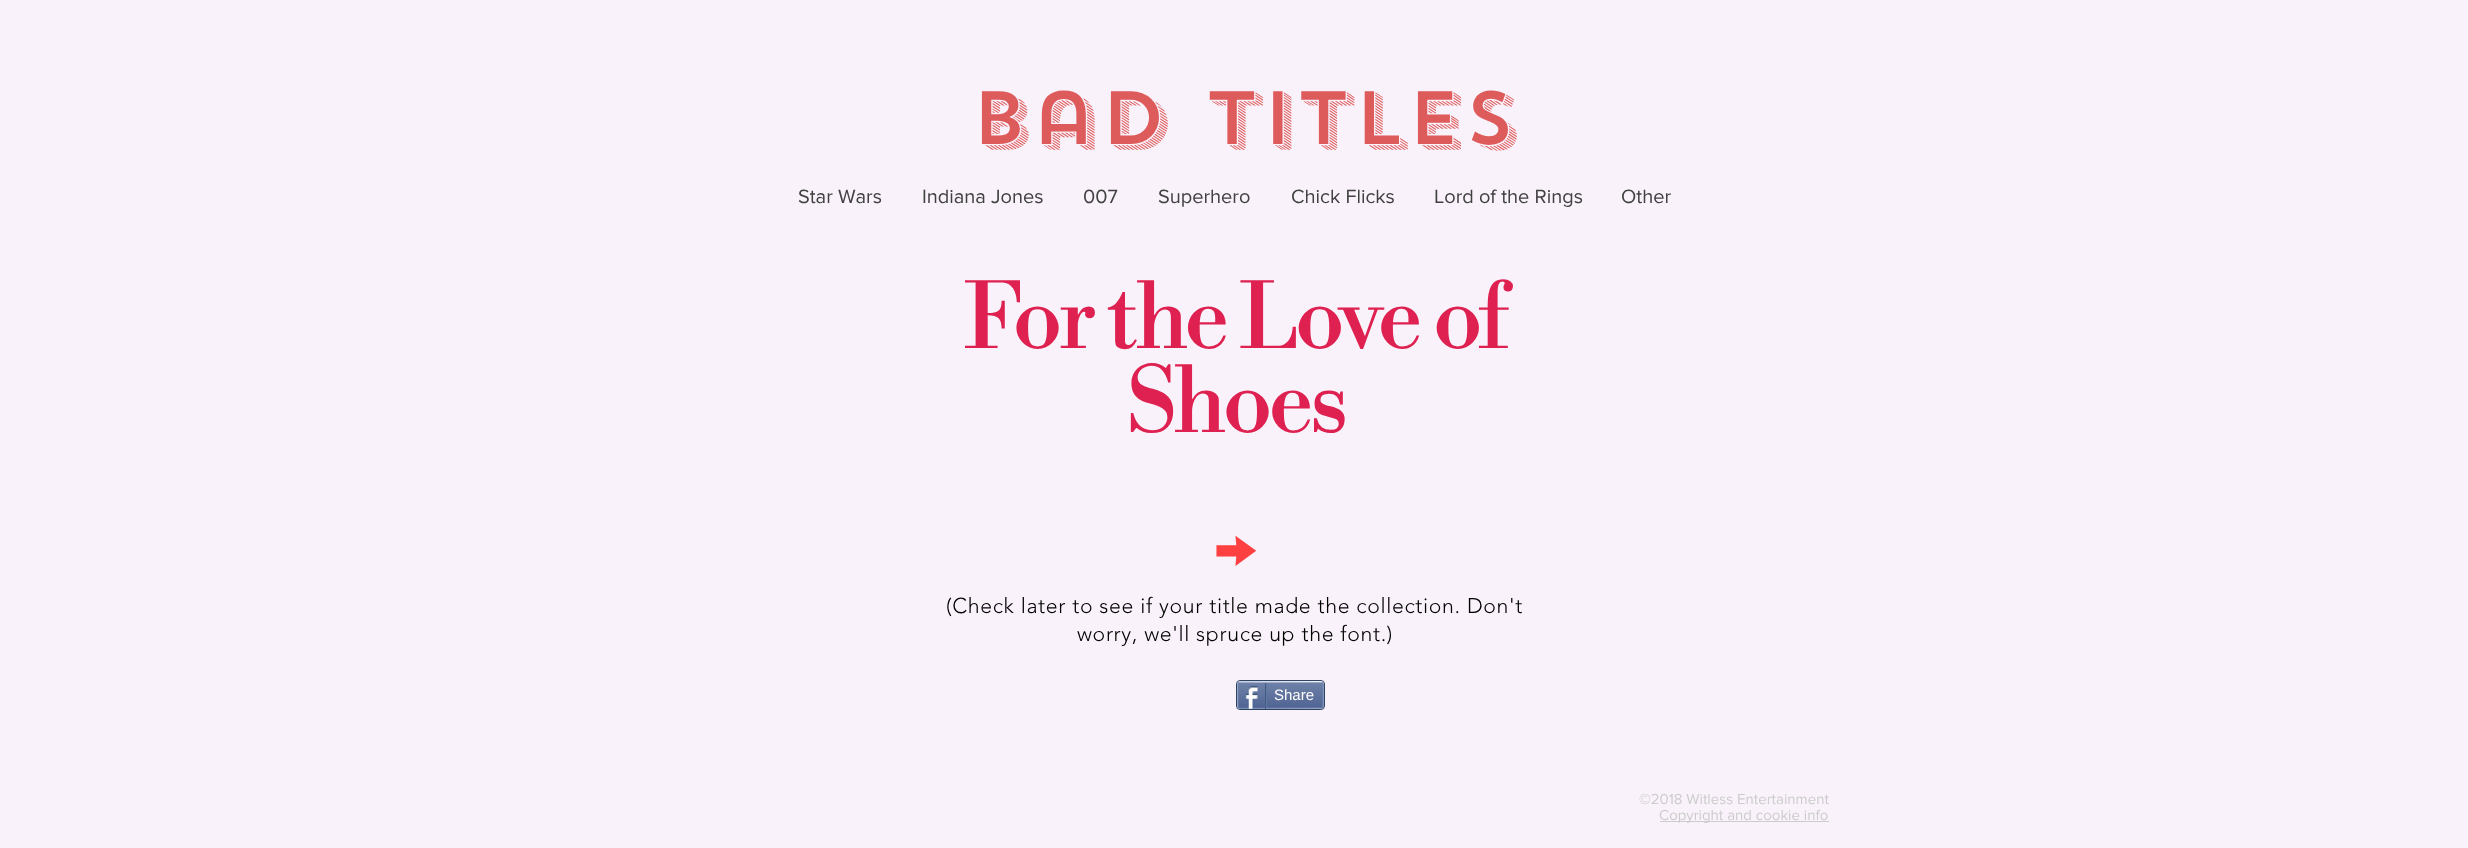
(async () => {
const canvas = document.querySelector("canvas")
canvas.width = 2468
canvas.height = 848
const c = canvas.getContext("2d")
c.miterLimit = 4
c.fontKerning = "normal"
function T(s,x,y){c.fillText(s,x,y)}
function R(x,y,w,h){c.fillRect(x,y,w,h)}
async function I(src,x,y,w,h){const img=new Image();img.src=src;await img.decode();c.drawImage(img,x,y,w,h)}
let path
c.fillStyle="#f9f2fa"
R(0,0,2468,848)
c.letterSpacing="3.75px"
c.font="500 75px 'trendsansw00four'"
c.fillStyle="#de5b5b"
T("Bad Titles",971,144)
c.letterSpacing="0px"
c.font="20px 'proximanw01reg'"
c.fillStyle="#414141"
T("Star Wars",798,203)
T("Indiana Jones",922,203)
T("007",1083,203)
T("Superhero",1158,203)
T("Chick Flicks",1291,203)
T("Lord of the Rings",1434,203)
T("Other",1621,203)
c.letterSpacing="-4.5px"
c.font="90px Libre Bodoni"
c.fillStyle="#de2150"
T("For the Love of",964,348)
T("Shoes",1126,432)
c.letterSpacing="0px"
c.font="74px 'proximanw01reg'"
c.fillStyle="#ff4040"
T("→",1213,572)
c.letterSpacing="0.65px"
c.font="300 21.25px 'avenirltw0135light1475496'"
c.fillStyle="#000"
T("(Check later to see if your title made the collection. Don't",946,613)
T("worry, we'll spruce up the font.)",1077,641)
c.beginPath()
c.roundRect(1236.5,680.5,88,29,3.5)
c.strokeStyle="#2d4565"
c.stroke()
await I("1.png",1237,682,87,27)
path = new Path2D("M1238.5 682.5l1.5-.5l82.5 .5")
c.strokeStyle="#9aabc6"
c.lineWidth=1.2
c.stroke(path)
path = new Path2D("M1322.5 682.5l.5 1.5v22l-.5 1.5")
c.strokeStyle="#6f83ad"
c.stroke(path)
path = new Path2D("M1322.5 707.5l-69 .5h-13.5l-1.5-.5")
c.strokeStyle="#6176a3"
c.stroke(path)
path = new Path2D("M1238.5 707.5l-.5-1.5v-22l.5-1.5")
c.strokeStyle="#6f83ad"
c.stroke(path)
await I("2.png",1245,686,13,23)
c.fillStyle="#425e85"
R(1265,683,1,26)
c.letterSpacing="0px"
c.font="15px Liberation Sans"
c.fillStyle="#fff"
T("Share",1274,700)
c.fillStyle="#6176a3"
R(1266,683,1,25)
c.font="15px 'proximanw01reg'"
c.fillStyle="#ccc"
T("©2018 Witless Entertainment",1639,804)
R(1660,821,169,1)
T("Copyright and cookie info",1659,820)
})()
